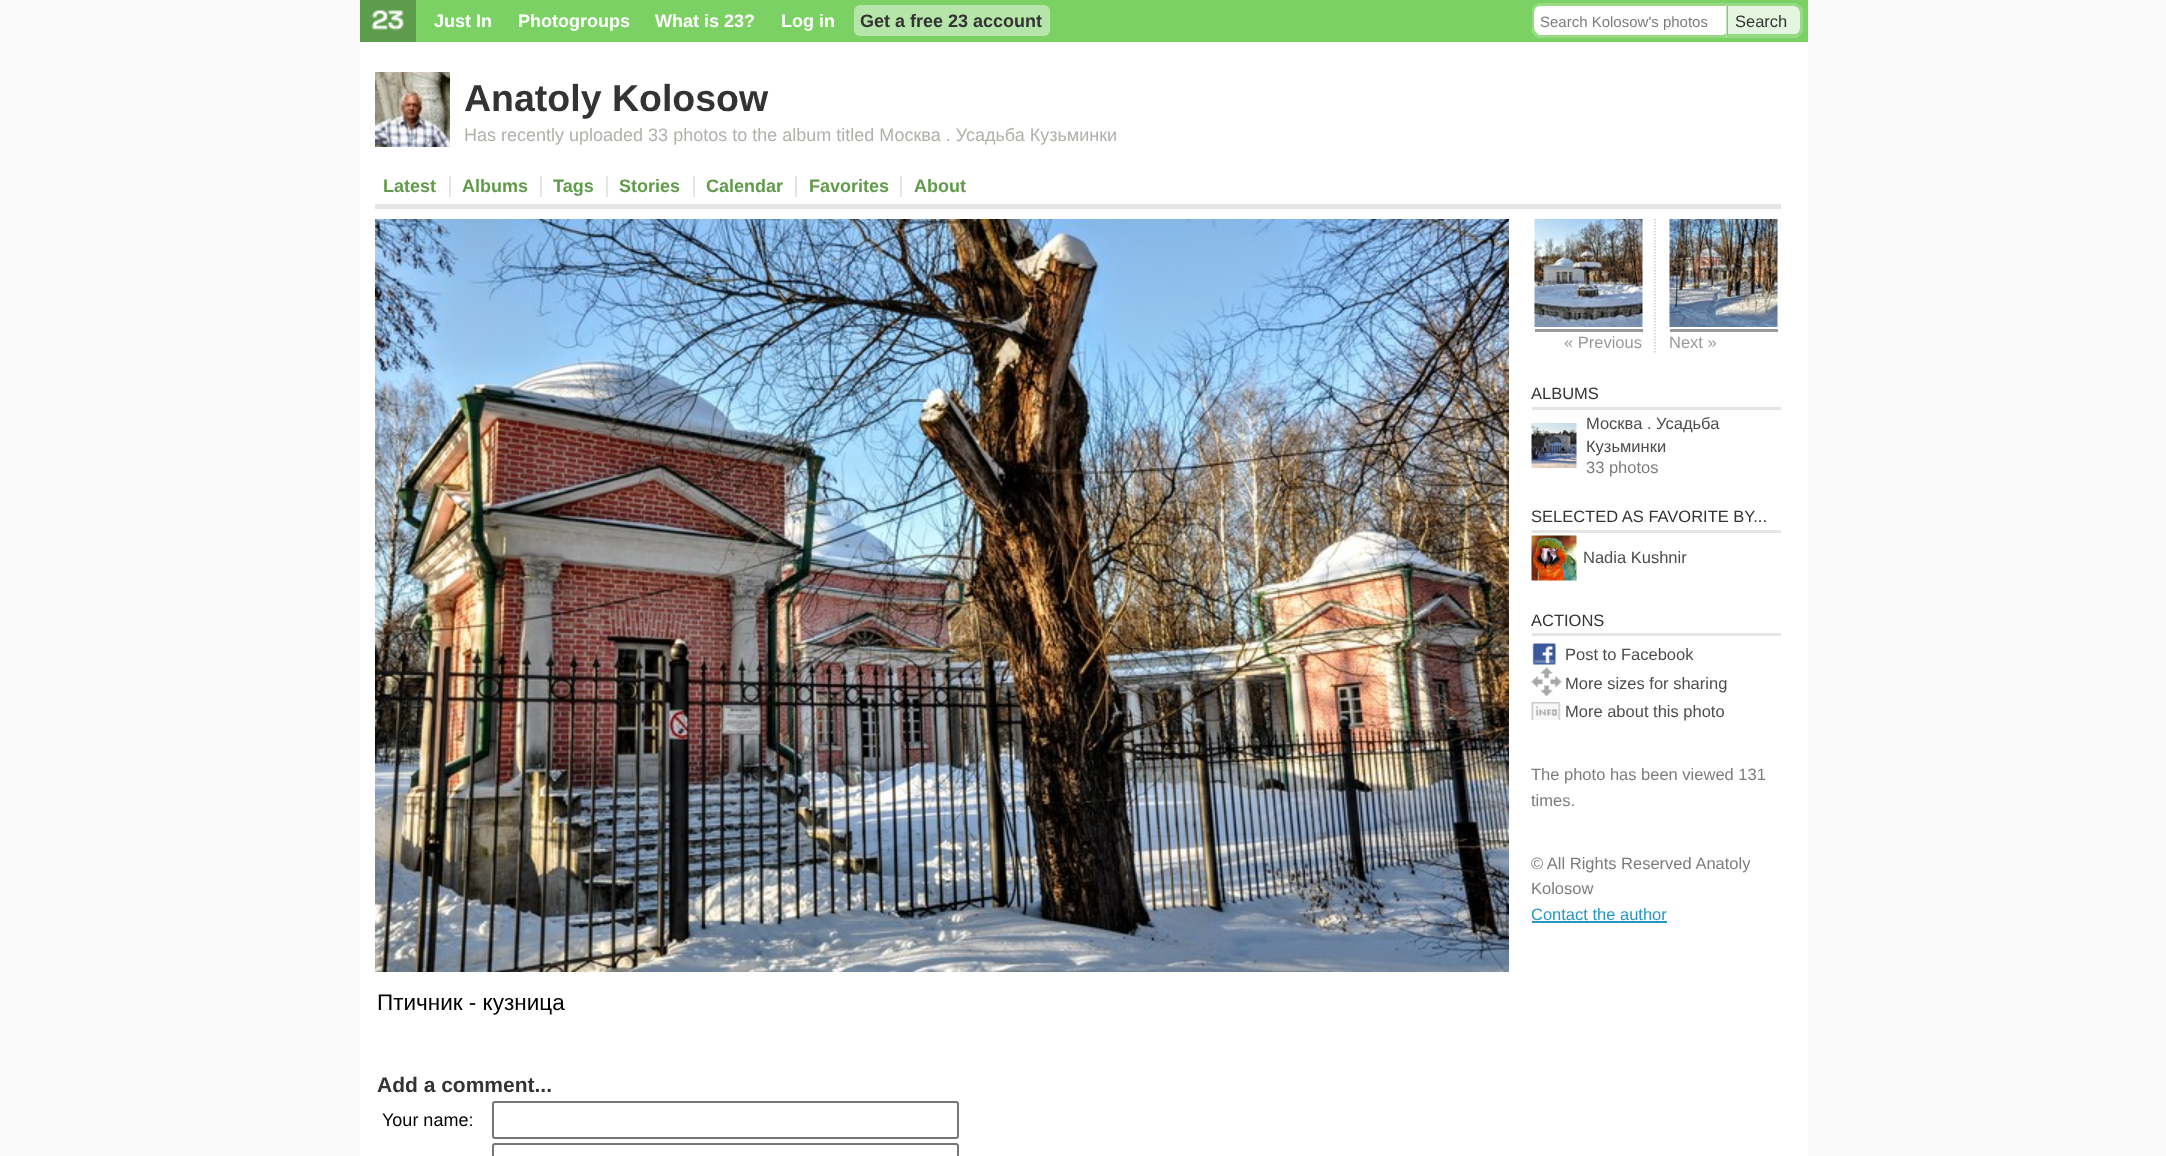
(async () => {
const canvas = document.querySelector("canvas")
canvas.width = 2166
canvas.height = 1156
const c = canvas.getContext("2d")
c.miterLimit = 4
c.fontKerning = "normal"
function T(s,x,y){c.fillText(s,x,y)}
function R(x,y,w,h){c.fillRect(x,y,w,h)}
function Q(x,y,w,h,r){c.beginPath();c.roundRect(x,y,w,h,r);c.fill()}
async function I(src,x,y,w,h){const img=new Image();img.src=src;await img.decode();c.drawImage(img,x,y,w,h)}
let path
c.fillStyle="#f9f9f9"
R(0,0,2166,1156)
c.fillStyle="#fff"
R(360,42,1448,1114)
c.fillStyle="#7cd164"
R(416,0,1392,42)
c.fillStyle="#5d9c4b"
R(360,0,56,42)
await I("1.png",371,10,33,21)
c.font="bold 18px Liberation Sans"
c.fillStyle="#fff"
T("Just In",434,27)
T("Photogroups",518,27)
T("What is 23?",655,27)
T("Log in",781,27)
c.fillStyle="#b6e5a9"
Q(854,5,196,31,6)
c.fillStyle="#333"
T("Get a free 23 account",860,27)
c.fillStyle="#fff"
c.beginPath()
c.roundRect(1532,3,195,35,[9,0,0,9])
c.fill()
c.fillStyle="#96da83"
path = new Path2D("M1540 3h186v35h-186c-4 0-8-5-8-10v-16c0-5 4-9 8-9zm0 3h186v28h-187c-6-1-5-9-5-14c0-5-1-14 6-14z")
c.fill(path,"evenodd")
c.fillStyle="#fff"
R(1538,33,186,2)
c.font="15px Liberation Sans"
c.fillStyle="#7c7c7c"
T("Search Kolosow's photos",1540,27)
c.fillStyle="#e4f5e0"
c.beginPath()
c.roundRect(1728,6,72,29,[0,6,6,0])
c.fill()
c.fillStyle="#96da83"
path = new Path2D("M1728 6h66c2 0 3 1 4 2l2-2c-1-2-4-3-6-3h-68z")
c.fill(path)
path = new Path2D("M1803 28v-16c0-2.5-1-5-2.5-6.5l-2.5 2.5c1 1 2 2.5 2 4v16c0 2-1 3.5-2 4.5l2.5 2.5c1.5-2 2.5-4.5 2.5-7z")
c.fill(path)
path = new Path2D("M1800 35l-3 3h-71l2-4h66c1 0 3 0 4-1z")
c.fill(path)
c.fillStyle="#7cd164"
path = new Path2D("M1728 6l-1.5-3v34.5l1.5-3.5z")
c.fill(path)
c.font="16.5px Liberation Sans"
c.fillStyle="#333"
T("Search",1735,27)
await I("2.png",375,72,75,75)
c.font="bold 37.5px Liberation Sans"
T("Anatoly Kolosow",464,111)
c.font="18px Liberation Sans"
c.fillStyle="#afb1aa"
T("Has recently uploaded 33 photos to the album titled Москва . Усадьба Кузьминки",464,141)
c.fillStyle="#e5e5e5"
R(449,176,2,21)
c.font="bold 18px Liberation Sans"
c.fillStyle="#5f9b4a"
T("Latest",383,192)
c.fillStyle="#e5e5e5"
R(540,176,2,21)
c.fillStyle="#5f9b4a"
T("Albums",462,192)
c.fillStyle="#e5e5e5"
R(606,176,2,21)
c.fillStyle="#5f9b4a"
T("Tags",553,192)
c.fillStyle="#e5e5e5"
R(693,176,2,21)
c.fillStyle="#5f9b4a"
T("Stories",619,192)
c.fillStyle="#e5e5e5"
R(795,176,2,21)
c.fillStyle="#5f9b4a"
T("Calendar",706,192)
c.fillStyle="#e5e5e5"
R(900,176,2,21)
c.fillStyle="#5f9b4a"
T("Favorites",809,192)
T("About",914,192)
c.fillStyle="#e5e5e5"
R(375,204,1406,5)
path = new Path2D("M1655 219v135")
c.strokeStyle="#ccc"
c.lineWidth=1.5
c.setLineDash([1.5,1.5])
c.stroke(path)
await I("3.png",1534,219,109,108)
c.fillStyle="#999"
R(1535,329,108,3)
c.font="16.5px Liberation Sans"
T("« Previous",1564,348)
await I("4.png",1669,219,109,108)
R(1670,329,108,3)
T("Next »",1669,348)
c.fillStyle="#e5e5e5"
R(1532,407,249,3)
c.fillStyle="#333"
T("ALBUMS",1531,399)
await I("5.png",1531,423,46,45)
c.fillStyle="#4c4c4c"
T("Москва . Усадьба",1586,429)
T("Кузьминки",1586,452)
c.fillStyle="#7c7c7c"
T("33 photos",1586,473)
c.fillStyle="#e5e5e5"
R(1532,530,249,3)
c.fillStyle="#333"
T("SELECTED AS FAVORITE BY...",1531,522)
await I("6.png",1531,535,46,46)
c.fillStyle="#4c4c4c"
T("Nadia Kushnir",1583,563)
c.fillStyle="#e5e5e5"
R(1532,633,249,3)
c.fillStyle="#333"
T("ACTIONS",1531,626)
await I("7.png",1532,643,24,22)
c.fillStyle="#4c4c4c"
T("Post to Facebook",1565,660)
await I("8.png",1531,667,31,29)
T("More sizes for sharing",1565,689)
await I("9.png",1531,702,30,18)
T("More about this photo",1565,717)
c.fillStyle="#7c7c7c"
T("The photo has been viewed 131",1531,780)
T("times.",1531,806)
T("© All Rights Reserved Anatoly",1531,869)
T("Kolosow",1531,894)
c.fillStyle="#2797c1"
T("Contact the author",1531,920)
R(1532,921,135,2)
await I("10.png",375,219,1134,753)
c.font="22.5px Liberation Sans"
c.fillStyle="#000"
T("Птичник - кузница",377,1010)
c.font="bold 21px Liberation Sans"
c.fillStyle="#333"
T("Add a comment...",377,1092)
c.font="18px Liberation Sans"
c.fillStyle="#000"
T("Your name:",382,1126)
c.beginPath()
c.roundRect(493,1102,465,36,2)
c.strokeStyle="#767676"
c.lineWidth=2
c.setLineDash([])
c.stroke()
c.beginPath()
c.roundRect(493,1144,465,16,2)
c.stroke()
})()
